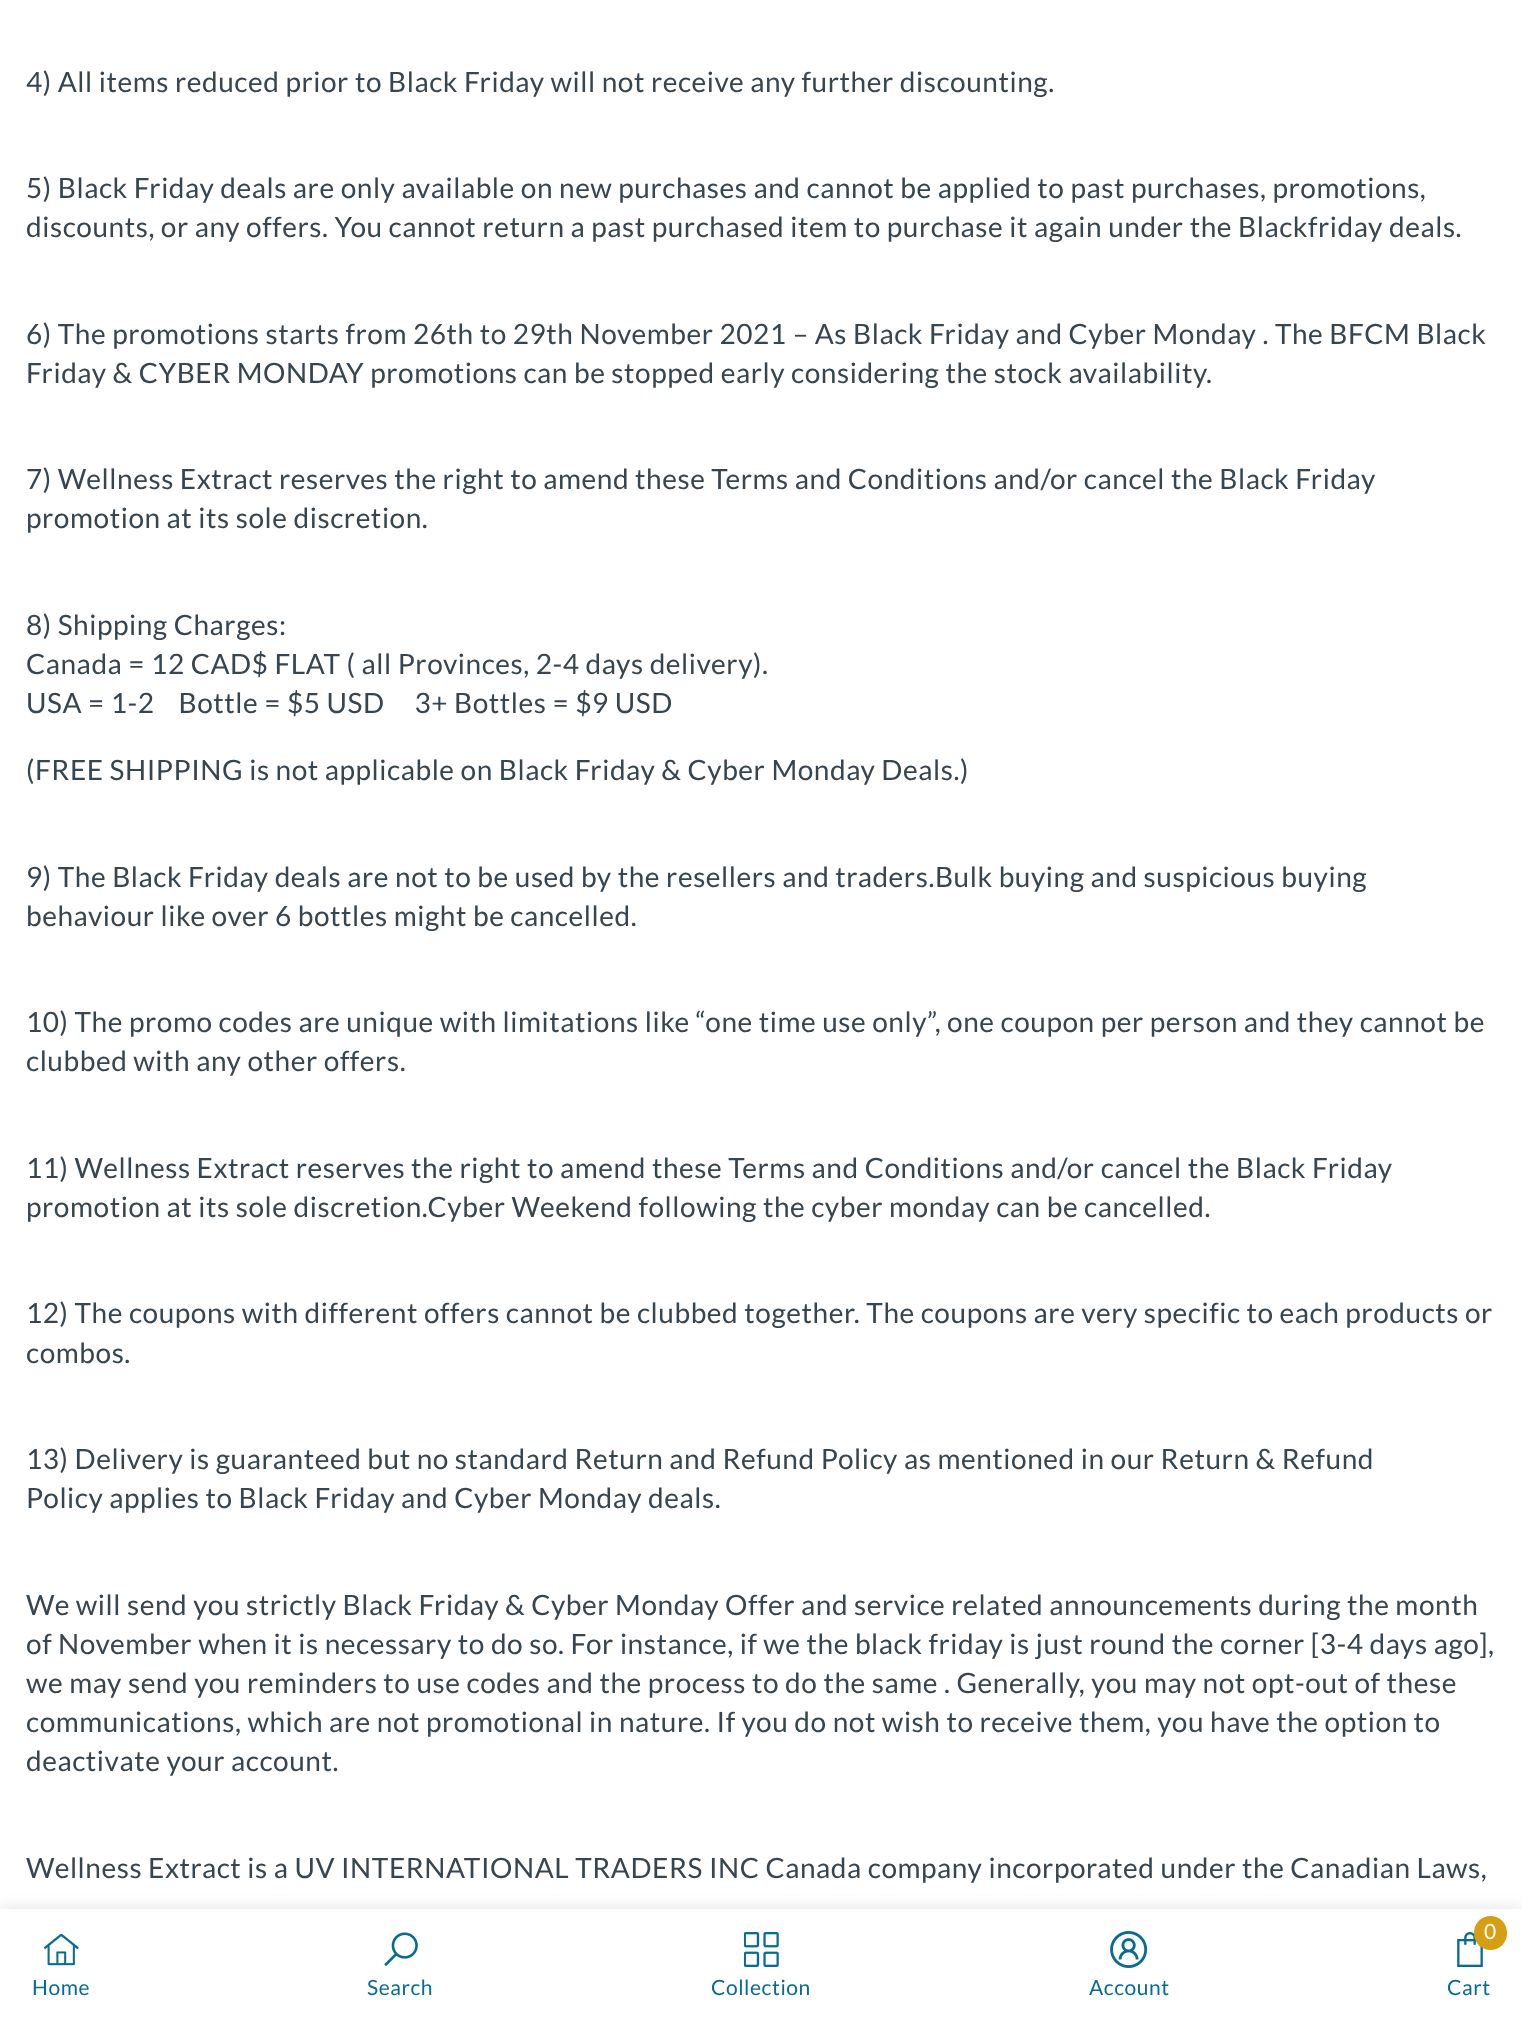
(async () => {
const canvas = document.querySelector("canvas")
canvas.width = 1522
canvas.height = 2017
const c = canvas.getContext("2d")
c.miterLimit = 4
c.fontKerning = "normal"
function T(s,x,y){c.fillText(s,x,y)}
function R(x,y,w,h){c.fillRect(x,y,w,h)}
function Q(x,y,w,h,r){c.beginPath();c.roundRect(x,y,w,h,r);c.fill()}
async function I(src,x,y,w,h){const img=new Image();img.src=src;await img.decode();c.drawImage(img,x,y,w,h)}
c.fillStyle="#fff"
R(0,0,1522,2017)
c.letterSpacing="0.56px"
c.font="28px Lato"
c.fillStyle="#36454f"
T("4) All items reduced prior to Black Friday will not receive any further discounting.",26,92)
T("5) Black Friday deals are only available on new purchases and cannot be applied to past purchases, promotions,",26,198)
T("discounts, or any offers. You cannot return a past purchased item to purchase it again under the Blackfriday deals.",26,237)
T("6) The promotions starts from 26th to 29th November 2021 – As Black Friday and Cyber Monday . The BFCM Black",26,344)
T("Friday & CYBER MONDAY promotions can be stopped early considering the stock availability.",26,383)
T("7) Wellness Extract reserves the right to amend these Terms and Conditions and/or cancel the Black Friday",26,489)
T("promotion at its sole discretion.",26,528)
T("8) Shipping Charges:",26,635)
T("Canada = 12 CAD$ FLAT ( all Provinces, 2-4 days delivery).",26,674)
T("USA = 1-2    Bottle = $5 USD     3+ Bottles = $9 USD",26,713)
T("(FREE SHIPPING is not applicable on Black Friday & Cyber Monday Deals.)",26,780)
T("9) The Black Friday deals are not to be used by the resellers and traders.Bulk buying and suspicious buying",26,887)
T("behaviour like over 6 bottles might be cancelled.",26,926)
T("10) The promo codes are unique with limitations like “one time use only”, one coupon per person and they cannot be",26,1032)
T("clubbed with any other offers.",26,1071)
T("11) Wellness Extract reserves the right to amend these Terms and Conditions and/or cancel the Black Friday",26,1178)
T("promotion at its sole discretion.Cyber Weekend following the cyber monday can be cancelled.",26,1217)
T("12) The coupons with different offers cannot be clubbed together. The coupons are very specific to each products or",26,1323)
T("combos.",26,1363)
T("13) Delivery is guaranteed but no standard Return and Refund Policy as mentioned in our Return & Refund",26,1469)
T("Policy applies to Black Friday and Cyber Monday deals.",26,1508)
T("We will send you strictly Black Friday & Cyber Monday Offer and service related announcements during the month",26,1615)
T("of November when it is necessary to do so. For instance, if we the black friday is just round the corner [3-4 days ago],",26,1654)
T("we may send you reminders to use codes and the process to do the same . Generally, you may not opt-out of these",26,1693)
T("communications, which are not promotional in nature. If you do not wish to receive them, you have the option to",26,1732)
T("deactivate your account.",26,1771)
T("Wellness Extract is a UV INTERNATIONAL TRADERS INC Canada company incorporated under the Canadian Laws,",26,1878)
c.fillStyle="#0000001f"
c.filter="blur(8px)"
c.beginPath()
c.rect(0,1909,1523,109)
c.fill()
c.filter="none"
c.fillStyle="#fff"
R(0,1909,1522,108)
await I("1.png",44,1933,35,33)
c.font="21px Lato"
c.fillStyle="#086b92"
T("Home",32,1995)
await I("2.png",384,1932,34,35)
T("Search",367,1995)
await I("3.png",744,1932,35,35)
T("Collection",711,1995)
await I("4.png",1110,1931,38,37)
T("Account",1089,1995)
await I("5.png",1457,1932,26,35)
c.fillStyle="#d69e12"
Q(1474,1916,33,34,16.5)
c.letterSpacing="0px"
c.fillStyle="#fff"
T("0",1484,1939)
c.letterSpacing="0.56px"
c.fillStyle="#086b92"
T("Cart",1447,1995)
})()
